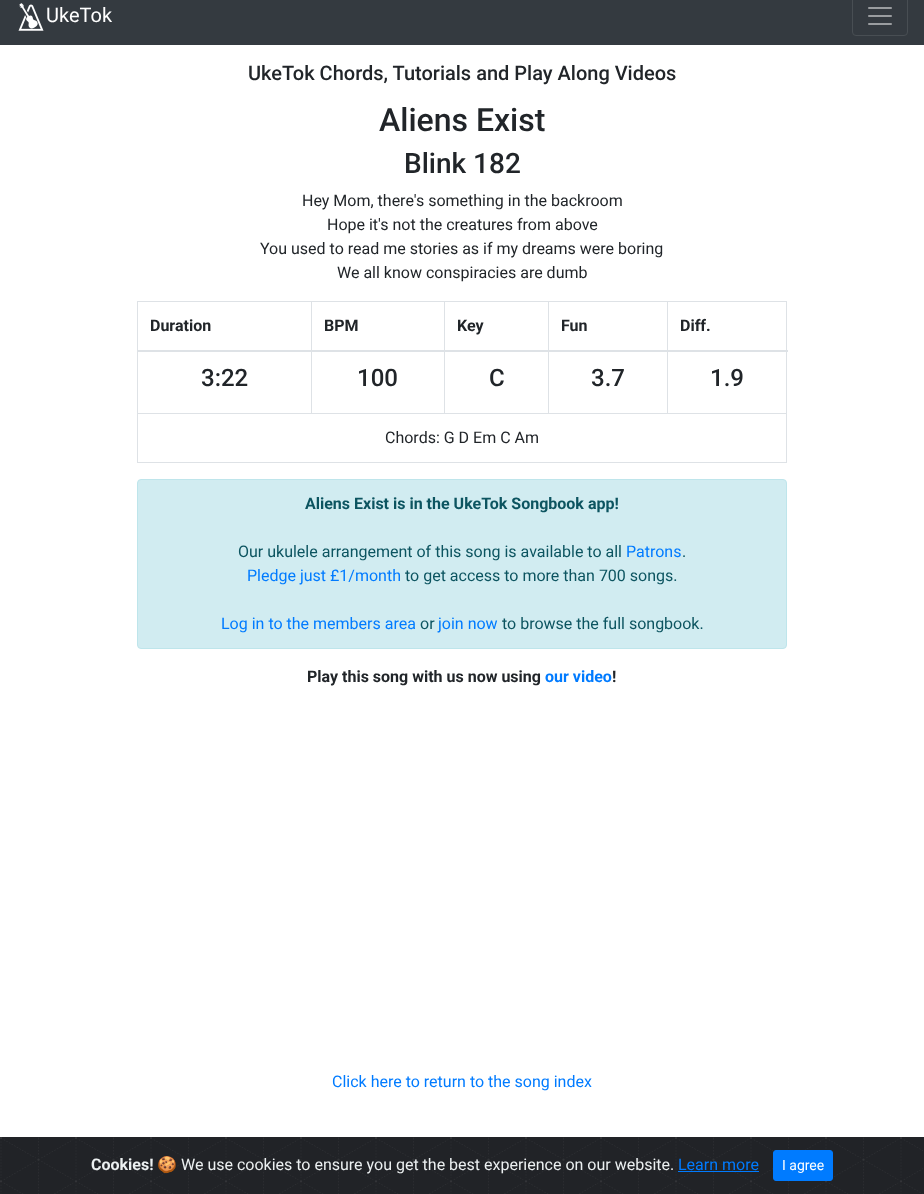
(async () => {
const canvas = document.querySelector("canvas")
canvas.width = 924
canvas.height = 1194
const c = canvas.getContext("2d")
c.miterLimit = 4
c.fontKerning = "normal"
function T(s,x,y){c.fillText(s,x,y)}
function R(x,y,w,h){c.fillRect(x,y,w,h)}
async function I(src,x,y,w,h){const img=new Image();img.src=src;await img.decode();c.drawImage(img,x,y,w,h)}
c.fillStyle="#fff"
R(0,0,924,1194)
c.fillStyle="#343a40"
R(0,0,924,45)
await I("1.png",18,3,26,28)
c.font="20px Roboto"
c.fillStyle="#fff"
T("UkeTok",46,22)
c.beginPath()
c.roundRect(852.5,-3.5,55,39,3.5)
c.strokeStyle="#484e53"
c.stroke()
await I("2.png",868,7,24,18)
c.font="500 20px Roboto"
c.fillStyle="#212529"
T("UkeTok Chords, Tutorials and Play Along Videos",248,80)
c.font="500 32px Roboto"
T("Aliens Exist",379,131)
c.font="500 28px Roboto"
T("Blink 182",404,173)
c.font="16px Roboto"
T("Hey Mom, there's something in the backroom",302,206)
T("Hope it's not the creatures from above",327,230)
T("You used to read me stories as if my dreams were boring",260,254)
T("We all know conspiracies are dumb",337,278)
c.fillStyle="#dee2e6"
R(137,301,650,1)
R(786,301,1,162)
R(137,462,650,1)
R(137,301,1,162)
c.font="bold 16px Roboto"
c.fillStyle="#212529"
T("Duration",150,331)
T("BPM",324,331)
T("Key",457,331)
T("Fun",561,331)
c.fillStyle="#dee2e6"
R(137,413,650,1)
R(311,301,1,113)
R(444,301,1,113)
R(548,301,1,113)
R(667,301,1,113)
R(137,350,651,2)
c.fillStyle="#212529"
T("Diff.",680,331)
c.font="500 24px Roboto"
T("3:22",201,386)
T("100",357,386)
T("C",489,386)
T("3.7",591,386)
T("1.9",710,386)
c.font="16px Roboto"
T("Chords: G D Em C Am",385,443)
c.fillStyle="#d1ecf1"
c.beginPath()
c.roundRect(137.5,479.5,649,169,3.5)
c.fill()
c.strokeStyle="#bee5eb"
c.stroke()
c.font="bold 16px Roboto"
c.fillStyle="#0c5460"
T("Aliens Exist is in the UkeTok Songbook app!",305,509)
c.font="16px Roboto"
T("Our ukulele arrangement of this song is available to all",238,557)
c.fillStyle="#007bff"
T("Patrons",626,557)
c.fillStyle="#0c5460"
T(".",682,557)
c.fillStyle="#007bff"
T("Pledge just £1/month",247,581)
c.fillStyle="#0c5460"
T("to get access to more than 700 songs.",405,581)
c.fillStyle="#007bff"
T("Log in to the members area",221,629)
c.fillStyle="#0c5460"
T("or",420,629)
c.fillStyle="#007bff"
T("join now",438,629)
c.fillStyle="#0c5460"
T("to browse the full songbook.",502,629)
c.font="bold 16px Roboto"
c.fillStyle="#212529"
T("Play this song with us now using",307,682)
c.fillStyle="#007bff"
T("our video",545,682)
c.fillStyle="#212529"
T("!",612,682)
c.font="16px Roboto"
c.fillStyle="#007bff"
T("Click here to return to the song index",332,1087)
c.fillStyle="#212327"
R(923,1137,1,57)
await I("3.png",0,1137,923,57)
c.font="bold 16px Roboto"
c.fillStyle="#ecf0f1"
T("Cookies!",91,1170)
c.font="16px Noto Color Emoji"
T("🍪",157,1170)
c.font="16px Roboto"
T("We use cookies to ensure you get the best experience on our website.",181,1170)
c.fillStyle="#007bff"
T("Learn more",678,1170)
R(678,1171,81,1)
c.beginPath()
c.roundRect(773.5,1150.5,59,30,2.5)
c.fill()
c.strokeStyle="#007bff"
c.stroke()
c.font="14px Roboto"
c.fillStyle="#fff"
T("I agree",782,1170)
})()
